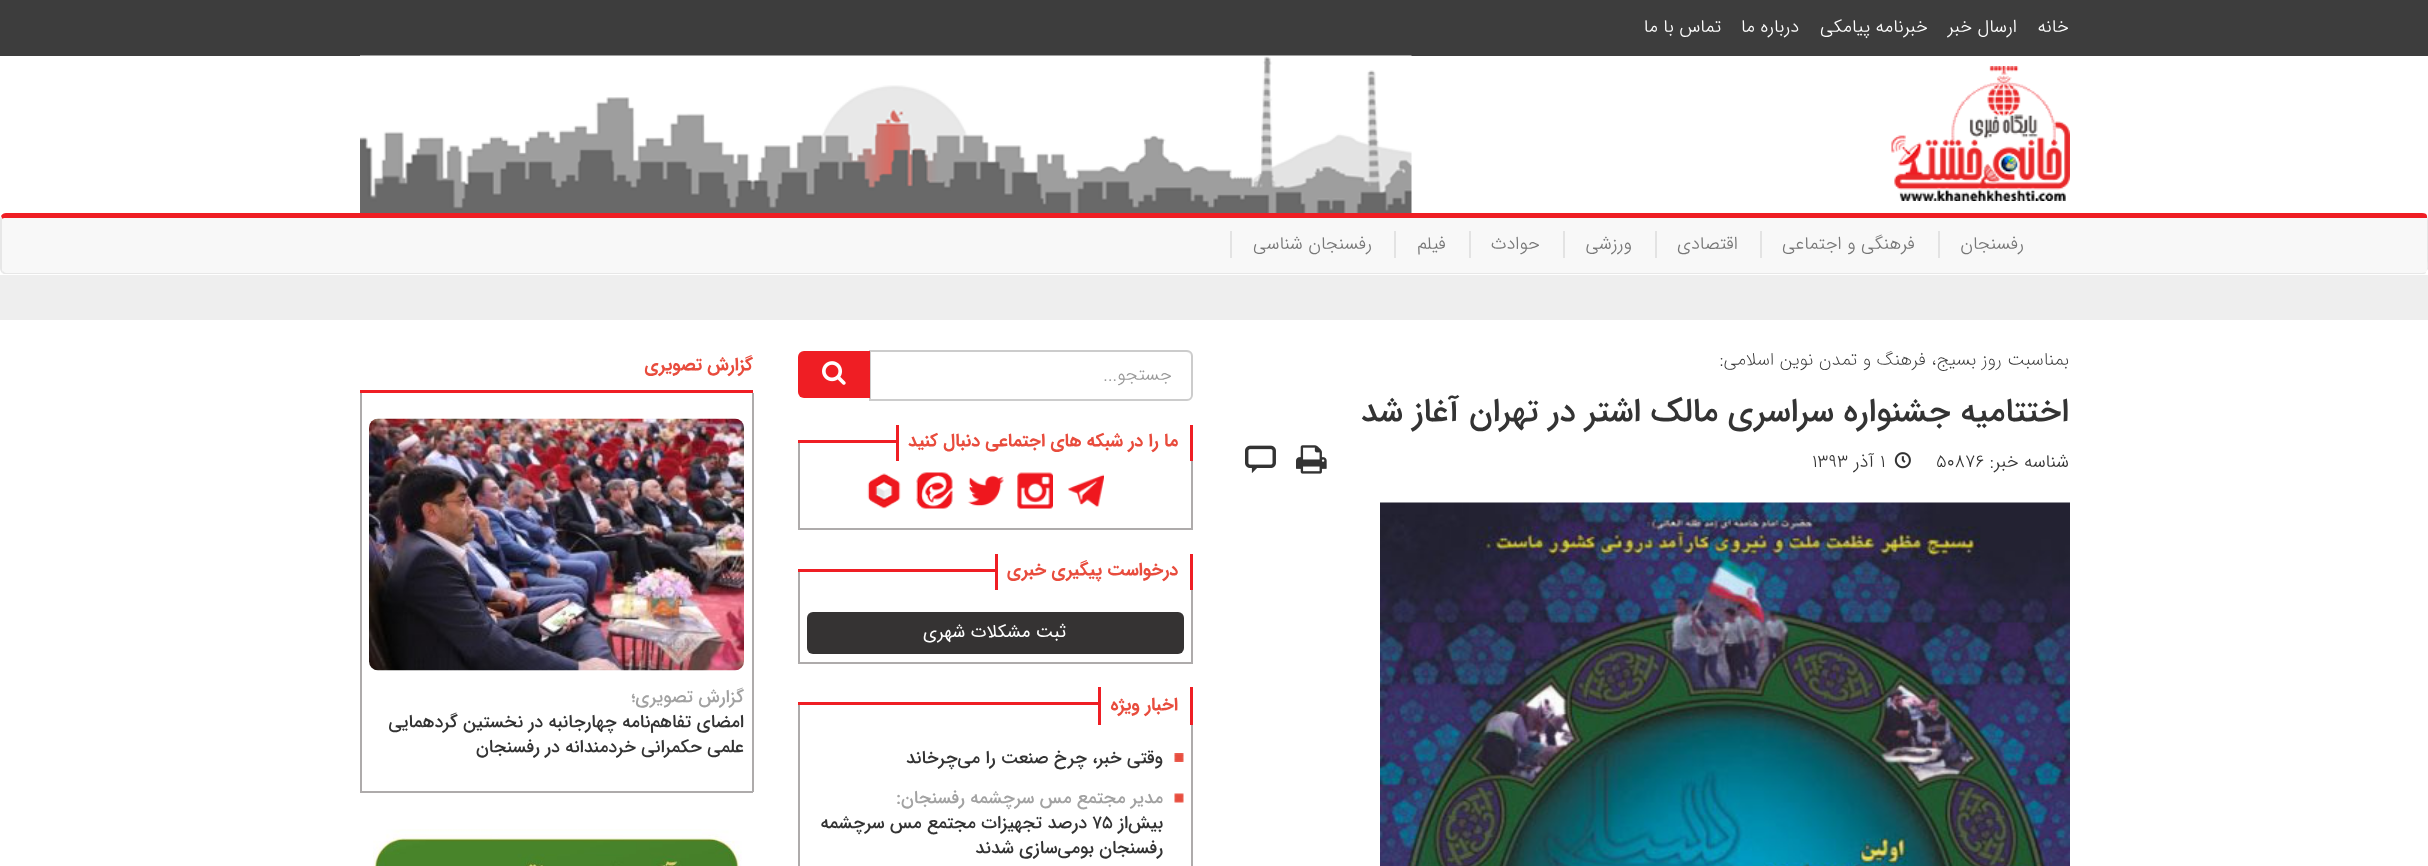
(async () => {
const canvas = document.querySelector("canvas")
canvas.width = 2428
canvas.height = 866
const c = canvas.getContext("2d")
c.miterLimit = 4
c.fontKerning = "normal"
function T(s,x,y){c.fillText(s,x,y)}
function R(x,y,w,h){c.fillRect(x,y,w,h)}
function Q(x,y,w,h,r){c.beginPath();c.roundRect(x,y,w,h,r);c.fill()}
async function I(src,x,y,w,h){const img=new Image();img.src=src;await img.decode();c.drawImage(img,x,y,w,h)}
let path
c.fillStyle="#fff"
R(0,0,2428,866)
c.fillStyle="#3d3d3d"
R(0,0,2428,56)
c.direction="rtl"
c.font="300 18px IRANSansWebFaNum"
c.fillStyle="#fff"
T("خانه",2069,32)
T("ارسال خبر",2017,32)
T("خبرنامه پیامکی",1928,32)
T("درباره ما",1799,32)
T("تماس با ما",1721,32)
await I("1.png",360,55,1052,158)
await I("2.png",1891,66,179,135)
c.fillStyle="#f8f8f8"
path = new Path2D("M6 218h2416c3 0 5 0 5 1v49c0 3-2 5-5 5h-2416c-2 0-4-2-4-5v-49c0-1 2-1 4-1z")
c.fill(path)
c.fillStyle="#ef1e24"
path = new Path2D("M6 213c-2 0-4 1-5 3l1 3c0-1 2-1 4-1h2416c2 0 4 0 5 0v-2c0-2-2-3-5-3z")
c.fill(path)
c.fillStyle="#e7e7e7"
path = new Path2D("M2427 216c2 3 1 9 1 11v42l-2 3c2-3 1-10 1-12v-42z")
c.fill(path)
path = new Path2D("M2426 272c0 2-2 2-4 2h-2416c-1 0-3 0-4-1l1-2c1 1 2 2 3 2h2416c2 0 3-1 4-1z")
c.fill(path)
path = new Path2D("M0 219v49c0 2 1 4 2 5l1-2c-1 0-1-2-1-3v-49l-1-3z")
c.fill(path)
c.fillStyle="#777"
T("رفسنجان",2024,249)
c.fillStyle="#e3e3e3"
R(1938,231,2,27)
c.fillStyle="#777"
T("فرهنگی و اجتماعی",1915,249)
c.fillStyle="#e3e3e3"
R(1760,231,2,27)
c.fillStyle="#777"
T("اقتصادی",1738,249)
c.fillStyle="#e3e3e3"
R(1655,231,2,27)
c.fillStyle="#777"
T("ورزشی",1632,249)
c.fillStyle="#e3e3e3"
R(1563,231,2,27)
c.fillStyle="#777"
T("حوادث",1540,249)
c.fillStyle="#e3e3e3"
R(1469,231,2,27)
c.fillStyle="#777"
T("فیلم",1446,249)
c.fillStyle="#e3e3e3"
R(1394,231,2,27)
c.fillStyle="#777"
T("رفسنجان شناسی",1372,249)
c.fillStyle="#e3e3e3"
R(1230,231,2,27)
c.fillStyle="#eee"
R(0,275,2428,45)
c.font="200 18px IRANSansWebFaNum"
c.fillStyle="#333"
T("بمناسبت روز بسیج، فرهنگ و تمدن نوین اسلامی:",2069,365)
c.font="500 33px IRANSansWebFaNum"
T("اختتامیه جشنواره سراسری مالک اشتر در تهران آغاز شد",2069,421)
c.font="300 18px IRANSansWebFaNum"
T("شناسه خبر:",2069,467)
c.direction="ltr"
T("50876",1936,467)
await I("3.png",1894,452,17,17)
T("1",1880,467)
c.direction="rtl"
T("آذر",1874,467)
c.direction="ltr"
T("1393",1812,467)
await I("4.png",1296,445,31,29)
await I("5.png",1245,445,31,28)
await I("6.png",1380,502,690,364)
c.fillStyle="#ececec"
path = new Path2D("M870 352h316c3 0 5 3 5 5c0-3-2-6-5-6h-316z")
c.fill(path)
c.beginPath()
c.roundRect(870,351,322,49,[0,5,5,0])
c.strokeStyle="#ccc"
c.lineWidth=2
c.stroke()
c.direction="rtl"
c.fillStyle="#999"
T("جستجو...",1172,380)
c.fillStyle="#ef1e24"
c.beginPath()
c.roundRect(798,351,72,47,[6,0,0,6])
c.fill()
await I("7.png",822,361,24,24)
R(798,440,98,3)
R(1190,425,3,36)
R(896,425,3,36)
c.font="bold 18px IRANSansWebFaNum"
c.fillStyle="#e84c3d"
T("ما را در شبکه های اجتماعی دنبال کنید",1178,446)
c.fillStyle="#aeabab"
R(1191,461,2,69)
R(798,528,395,2)
R(798,443,2,87)
await I("8.png",1068,474,36,33)
await I("9.png",1017,472,36,37)
await I("10.png",967,475,37,32)
await I("11.png",916,472,37,37)
await I("12.png",867,473,34,36)
c.fillStyle="#ef1e24"
R(798,569,197,3)
R(1190,554,3,36)
R(995,554,3,36)
c.fillStyle="#e84c3d"
T("درخواست پیگیری خبری",1178,575)
c.fillStyle="#aeabab"
R(1191,590,2,73)
R(798,662,395,2)
R(798,572,2,91)
c.fillStyle="#353333"
Q(807,612,377,42,6)
c.font="18px IRANSansWebFaNum"
c.fillStyle="#fff"
T("ثبت مشکلات شهری",1066,637)
c.fillStyle="#ef1e24"
R(798,702,300,3)
R(1190,687,3,38)
R(1098,687,3,38)
c.font="bold 18px IRANSansWebFaNum"
c.fillStyle="#e84c3d"
T("اخبار ویژه",1178,710)
c.fillStyle="#aeabab"
R(1191,725,2,141)
R(798,705,2,161)
await I("13.png",1174,753,10,9)
c.font="500 18px IRANSansWebFaNum"
c.fillStyle="#333"
T("وقتی خبر، چرخ صنعت را می‌چرخاند",1163,763)
await I("14.png",1174,793,10,10)
c.fillStyle="#a2a2a2"
T("مدیر مجتمع مس سرچشمه رفسنجان:",1163,803)
c.fillStyle="#333"
T("بیش‌از",1163,828)
c.direction="ltr"
T("۷۵",1092,828)
c.direction="rtl"
T("درصد تجهیزات مجتمع مس سرچشمه",1087,828)
T("رفسنجان بومی‌سازی شدند",1163,853)
c.fillStyle="#ef1e24"
R(360,390,393,3)
c.font="bold 18px IRANSansWebFaNum"
c.fillStyle="#e84c3d"
T("گزارش تصویری",753,370)
c.fillStyle="#aeabab"
R(752,393,2,399)
R(360,791,393,2)
R(360,393,2,399)
await I("15.png",369,418,375,253)
c.font="500 18px IRANSansWebFaNum"
c.fillStyle="#a2a2a2"
T("گزارش تصویری؛",744,702)
c.fillStyle="#333"
T("امضای تفاهم‌نامه چهارجانبه در نخستین گردهمایی",744,727)
T("علمی حکمرانی خردمندانه در رفسنجان",744,752)
await I("16.png",373,829,369,37)
})()
